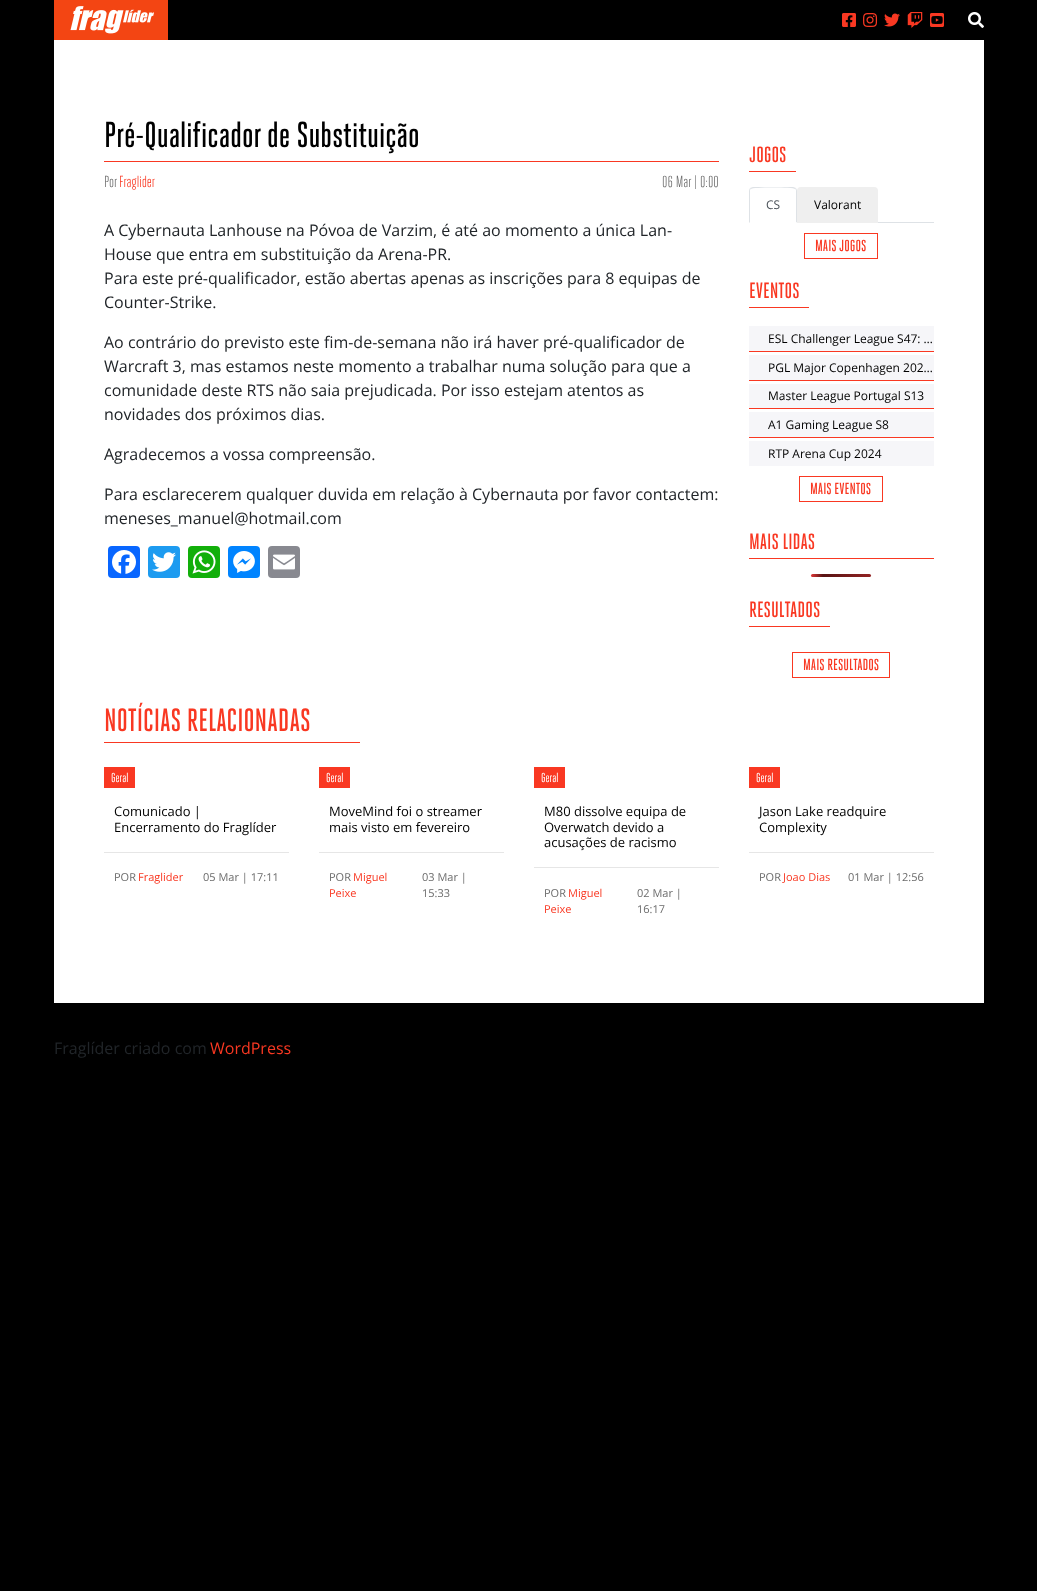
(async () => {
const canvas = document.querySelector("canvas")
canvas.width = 1037
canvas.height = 1591
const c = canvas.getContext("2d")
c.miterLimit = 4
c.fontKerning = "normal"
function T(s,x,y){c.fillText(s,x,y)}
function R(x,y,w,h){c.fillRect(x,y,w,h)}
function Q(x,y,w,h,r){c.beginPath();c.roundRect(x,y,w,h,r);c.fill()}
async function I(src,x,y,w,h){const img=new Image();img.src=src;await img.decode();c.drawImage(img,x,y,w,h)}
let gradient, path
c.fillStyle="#000"
R(0,0,1037,1591)
await I("1.png",54,0,114,40)
await I("2.png",842,13,14,14)
await I("3.png",863,13,15,14)
await I("4.png",884,13,16,14)
await I("5.png",907,12,16,16)
await I("6.png",930,13,14,14)
await I("7.png",968,12,16,16)
c.fillStyle="#fff"
R(54,40,930,963)
c.fillStyle="#f93822"
R(104,161,615,1)
c.font="500 36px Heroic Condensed"
c.fillStyle="#000"
T("Pré-Qualificador de Substituição",104,147)
c.font="16px Heroic Condensed"
c.fillStyle="#6b6b6b"
T("Por",104,187)
c.fillStyle="#f93822"
T("Fraglider",119,187)
c.fillStyle="#6b6b6b"
T("06 Mar | 0:00",662,187)
c.font="16px Open Sans"
c.fillStyle="#212529"
T("A Cybernauta Lanhouse na Póvoa de Varzim, é até ao momento a única Lan-",104,236)
T("House que entra em substituição da Arena-PR.",104,260)
T("Para este pré-qualificador, estão abertas apenas as inscrições para 8 equipas de",104,284)
T("Counter-Strike.",104,308)
T("Ao contrário do previsto este fim-de-semana não irá haver pré-qualificador de",104,348)
T("Warcraft 3, mas estamos neste momento a trabalhar numa solução para que a",104,372)
T("comunidade deste RTS não saia prejudicada. Por isso estejam atentos as",104,396)
T("novidades dos próximos dias.",104,420)
T("Agradecemos a vossa compreensão.",104,460)
T("Para esclarecerem qualquer duvida em relação à Cybernauta por favor contactem:",104,500)
T("meneses_manuel@hotmail.com",104,524)
c.fillStyle="#0866ff"
Q(108,546,32,32,4)
await I("8.png",112,550,24,24)
c.fillStyle="#1d9bf0"
Q(148,546,32,32,4)
await I("9.png",152,552,24,20)
c.fillStyle="#12af0a"
Q(188,546,32,32,4)
await I("10.png",192,550,24,24)
c.fillStyle="#0084ff"
Q(228,546,32,32,4)
await I("11.png",233,551,22,22)
c.fillStyle="#888990"
Q(268,546,32,32,4)
await I("12.png",273,554,22,16)
c.fillStyle="#f93822"
R(749,171,47,1)
c.font="500 22px Heroic Condensed"
T("JOGOS",749,162)
c.fillStyle="#dee2e6"
R(878,222,56,1)
path = new Path2D("M753 187l-3 1l1 1c1-2 43-2 44 0l1-1l-3-1z")
c.fill(path)
path = new Path2D("M797 223v-32c0-1-.5-2-1-3l-1 1c1 0 1 1 1 2v31z")
c.fill(path)
c.fillStyle="#fff"
path = new Path2D("M797 223l-1-1h-46l-1 1z")
c.fill(path)
c.fillStyle="#dee2e6"
path = new Path2D("M749 223l1-1v-31c0-1 0-2 1-2l-1-1c-.5 1-1 2-1 3z")
c.fill(path)
c.font="12px Open Sans"
c.fillStyle="#495057"
T("CS",766,209)
c.fillStyle="#efefef"
c.beginPath()
c.roundRect(797,187,81,36,[4,4,0,0])
c.fill()
c.fillStyle="#000"
T("Valorant",814,209)
c.strokeStyle="#f93822"
c.strokeRect(804.5,233.5,73,25)
c.font="500 16px Heroic Condensed"
c.fillStyle="#f93822"
T("MAIS JOGOS",815,251)
R(749,307,60,1)
c.font="500 22px Heroic Condensed"
T("EVENTOS",749,298)
c.fillStyle="#f6f6f9"
R(749,326,185,25)
c.fillStyle="#f93822"
R(749,351,185,1)
c.font="12px Open Sans"
c.fillStyle="#000"
T("ESL Challenger League S47: …",768,343)
c.fillStyle="#f6f6f9"
R(749,355,185,25)
c.fillStyle="#f93822"
R(749,380,185,1)
c.fillStyle="#000"
T("PGL Major Copenhagen 202…",768,372)
c.fillStyle="#f6f6f9"
R(749,384,185,24)
c.fillStyle="#f93822"
R(749,408,185,1)
c.fillStyle="#000"
T("Master League Portugal S13",768,400)
c.fillStyle="#f6f6f9"
R(749,412,185,25)
c.fillStyle="#f93822"
R(749,437,185,1)
c.fillStyle="#000"
T("A1 Gaming League S8",768,429)
c.fillStyle="#f6f6f9"
R(749,441,185,25)
c.fillStyle="#000"
T("RTP Arena Cup 2024",768,458)
c.strokeRect(799.5,476.5,83,25)
c.font="500 16px Heroic Condensed"
c.fillStyle="#f93822"
T("MAIS EVENTOS",810,494)
R(749,558,185,1)
c.font="500 22px Heroic Condensed"
T("MAIS LIDAS",749,549)
gradient = c.createLinearGradient(811,576,931,576)
gradient.addColorStop(0,"#dd3737")
gradient.addColorStop(.1,"#571313")
gradient.addColorStop(1,"#dd3737")
c.fillStyle = gradient
Q(811,574,60,3,1.5)
c.fillStyle="#f93822"
R(749,626,81,1)
T("RESULTADOS",749,617)
c.strokeRect(792.5,652.5,97,25)
c.font="500 16px Heroic Condensed"
T("MAIS RESULTADOS",803,670)
R(104,742,256,1)
c.font="500 32px Heroic Condensed"
T("NOTÍCIAS RELACIONADAS",104,731)
R(104,767,31,21)
c.font="13px 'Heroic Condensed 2'"
c.fillStyle="#fff"
T("Geral",111,782)
c.font="13px Open Sans"
c.fillStyle="#000"
T("Comunicado |",114,816)
T("Encerramento do Fraglíder",114,832)
c.fillStyle="#e6e6e6"
R(104,852,185,1)
c.font="11px Open Sans"
c.fillStyle="#6b6b6b"
T("POR",114,881)
c.fillStyle="#f93822"
T("Fraglider",138,881)
c.fillStyle="#6b6b6b"
T("05 Mar | 17:11",203,881)
c.fillStyle="#f93822"
R(319,767,31,21)
c.font="13px 'Heroic Condensed 2'"
c.fillStyle="#fff"
T("Geral",326,782)
c.font="13px Open Sans"
c.fillStyle="#000"
T("MoveMind foi o streamer",329,816)
T("mais visto em fevereiro",329,832)
c.fillStyle="#e6e6e6"
R(319,852,185,1)
c.font="11px Open Sans"
c.fillStyle="#6b6b6b"
T("POR",329,881)
c.fillStyle="#f93822"
T("Miguel",353,881)
T("Peixe",329,897)
c.fillStyle="#6b6b6b"
T("03 Mar |",422,881)
T("15:33",422,897)
c.fillStyle="#f93822"
R(534,767,31,21)
c.font="13px 'Heroic Condensed 2'"
c.fillStyle="#fff"
T("Geral",541,782)
c.font="13px Open Sans"
c.fillStyle="#000"
T("M80 dissolve equipa de",544,816)
T("Overwatch devido a",544,832)
T("acusações de racismo",544,847)
c.fillStyle="#e6e6e6"
R(534,867,185,1)
c.font="11px Open Sans"
c.fillStyle="#6b6b6b"
T("POR",544,897)
c.fillStyle="#f93822"
T("Miguel",568,897)
T("Peixe",544,913)
c.fillStyle="#6b6b6b"
T("02 Mar |",637,897)
T("16:17",637,913)
c.fillStyle="#f93822"
R(749,767,31,21)
c.font="13px 'Heroic Condensed 2'"
c.fillStyle="#fff"
T("Geral",756,782)
c.font="13px Open Sans"
c.fillStyle="#000"
T("Jason Lake readquire",759,816)
T("Complexity",759,832)
c.fillStyle="#e6e6e6"
R(749,852,185,1)
c.font="11px Open Sans"
c.fillStyle="#6b6b6b"
T("POR",759,881)
c.fillStyle="#f93822"
T("Joao Dias",783,881)
c.fillStyle="#6b6b6b"
T("01 Mar | 12:56",848,881)
c.font="16px Open Sans"
c.fillStyle="#212529"
T("Fraglíder criado com",54,1054)
c.fillStyle="#f93822"
T("WordPress",210,1054)
})()
